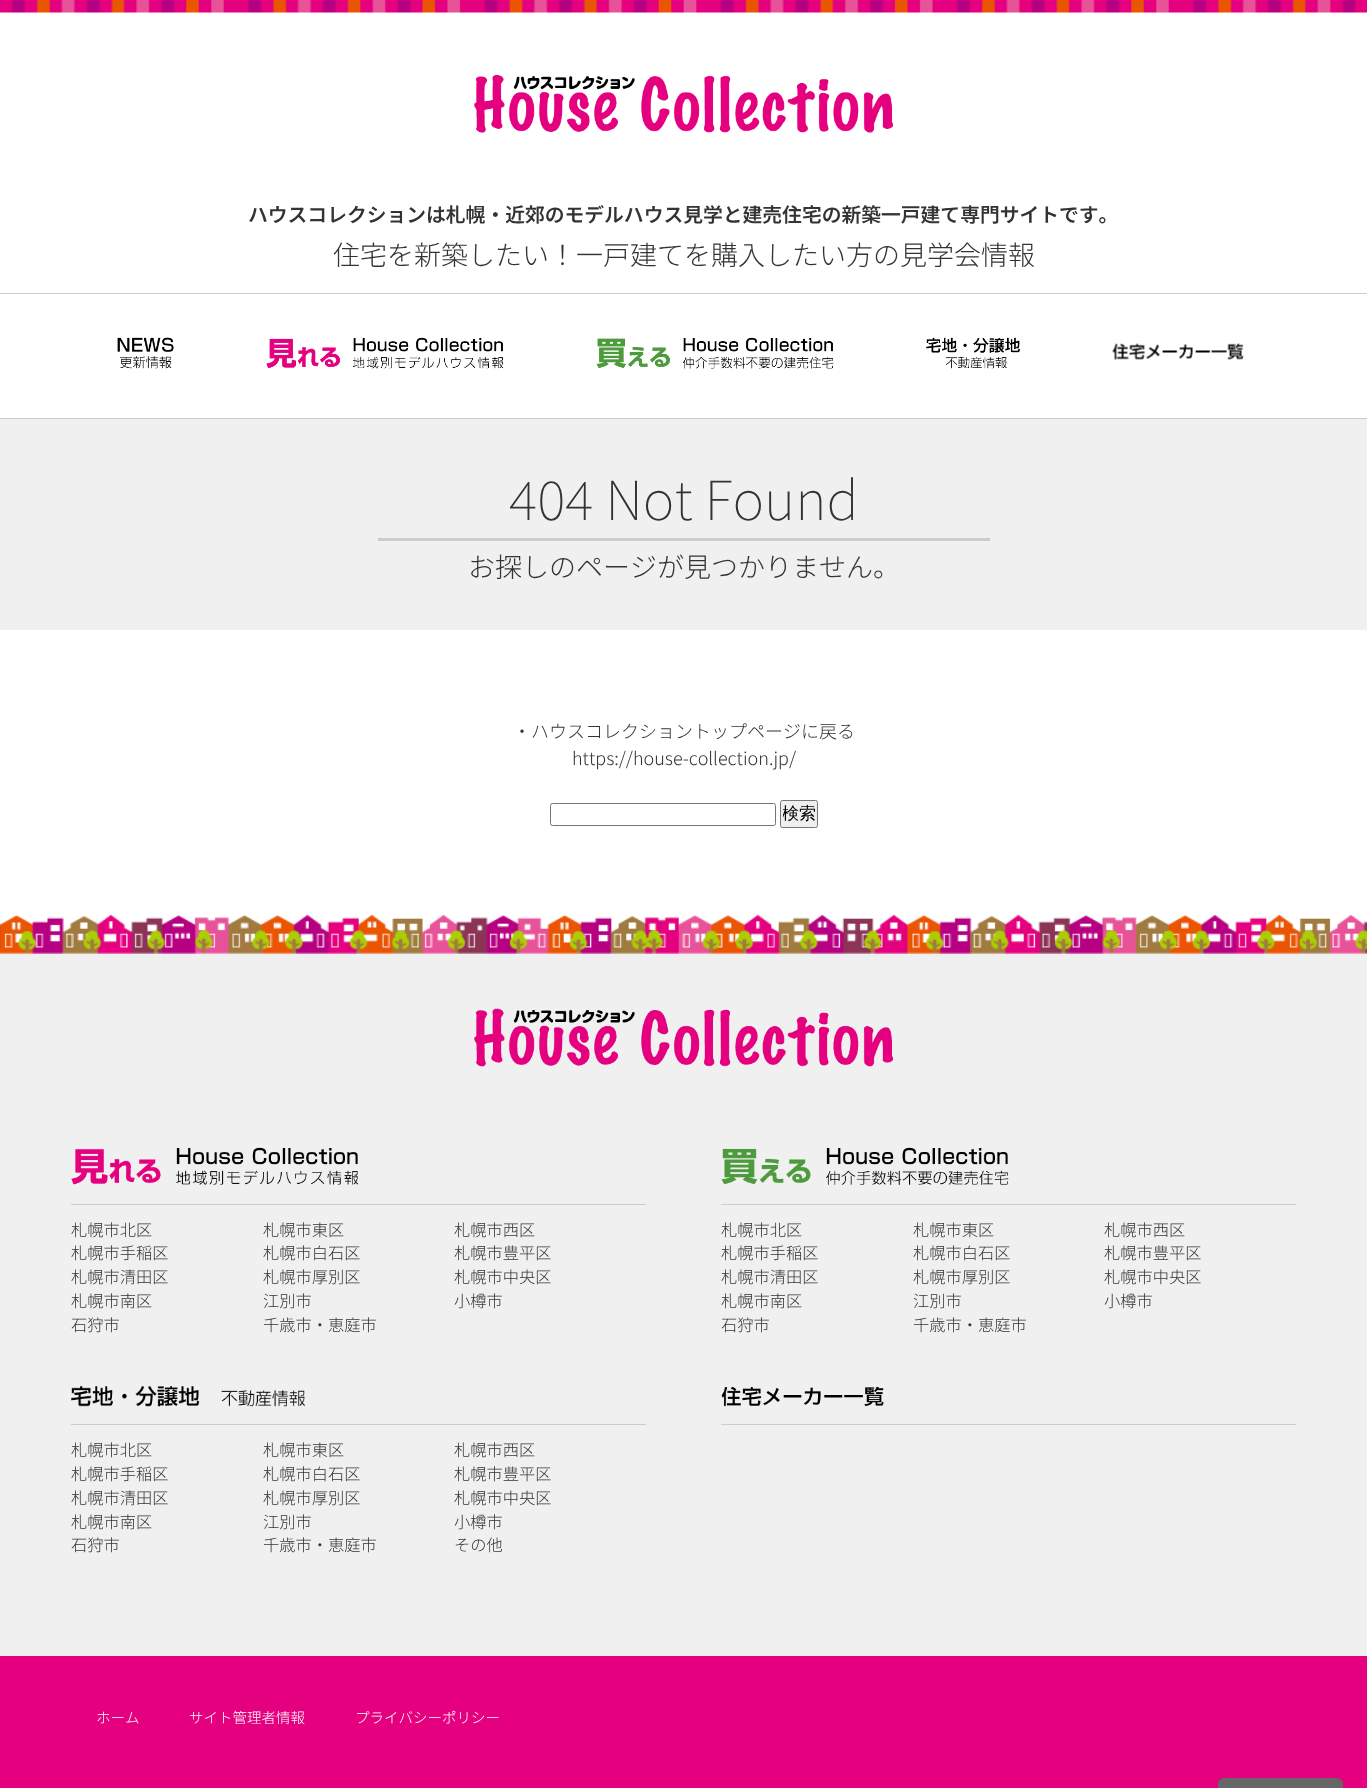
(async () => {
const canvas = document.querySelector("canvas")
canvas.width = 1367
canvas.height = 1788
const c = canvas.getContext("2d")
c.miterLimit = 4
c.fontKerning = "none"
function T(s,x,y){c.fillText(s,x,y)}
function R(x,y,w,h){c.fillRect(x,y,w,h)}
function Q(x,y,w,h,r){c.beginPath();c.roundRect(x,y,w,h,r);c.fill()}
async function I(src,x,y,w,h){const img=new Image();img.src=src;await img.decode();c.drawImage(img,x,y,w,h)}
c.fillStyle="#fff"
R(0,0,1367,1788)
await I("1.png",0,0,1367,13)
await I("2.png",474,75,419,58)
c.font="600 19.8px Noto Sans JP"
c.fillStyle="#333"
T("ハウスコレクションは札幌・近郊のモデルハウス見学と建売住宅の新築一戸建て専門サイトです。",248,222)
c.font="300 27px Noto Sans JP"
T("住宅を新築したい！一戸建てを購入したい方の見学会情報",333,265)
c.fillStyle="#ccc"
R(0,293,1367,1)
R(0,418,1367,1)
await I("3.png",117,337,57,32)
await I("4.png",266,337,237,32)
await I("5.png",596,337,238,32)
await I("6.png",926,337,94,32)
await I("7.png",1112,343,132,17)
c.fillStyle="#f0f0f0"
R(0,419,1367,211)
c.fillStyle="#ccc"
R(378,538,612,3)
c.font="100 54px Noto Sans JP"
c.fillStyle="#333"
T("404 Not Found",509,520)
c.font="300 27px Noto Sans JP"
T("お探しのページが見つかりません。",468,577)
c.font="300 18px Noto Sans JP"
T("・ハウスコレクショントップページに戻る",513,738)
T("https://house-collection.jp/",572,765)
c.beginPath()
c.roundRect(550.5,803.5,225,22,2)
c.strokeStyle="#767676"
c.stroke()
c.fillStyle="#efefef"
c.beginPath()
c.roundRect(780.5,800.5,37,27,2)
c.fill()
c.stroke()
c.save()
c.beginPath()
c.rect(783,803,32,22)
c.clip()
c.font="500 17px WenQuanYi Zen Hei"
c.fillStyle="#000"
T("検索",782,819)
c.restore()
c.fillStyle="#f0f0f0"
R(0,953,1367,703)
await I("8.png",0,915,1367,39)
await I("9.png",474,1008,419,59)
c.fillStyle="#ccc"
R(71,1204,575,1)
await I("10.png",71,1147,288,38)
c.font="300 16.25px Noto Sans JP"
c.fillStyle="#333"
T("札幌市北区",71,1236)
T("札幌市東区",263,1236)
T("札幌市西区",454,1236)
T("札幌市手稲区",71,1259)
T("札幌市白石区",263,1259)
T("札幌市豊平区",454,1259)
T("札幌市清田区",71,1283)
T("札幌市厚別区",263,1283)
T("札幌市中央区",454,1283)
T("札幌市南区",71,1307)
T("江別市",263,1307)
T("小樽市",454,1307)
T("石狩市",71,1331)
T("千歳市・恵庭市",263,1331)
c.fillStyle="#ccc"
R(721,1204,575,1)
await I("11.png",721,1147,288,38)
c.fillStyle="#333"
T("札幌市北区",721,1236)
T("札幌市東区",913,1236)
T("札幌市西区",1104,1236)
T("札幌市手稲区",721,1259)
T("札幌市白石区",913,1259)
T("札幌市豊平区",1104,1259)
T("札幌市清田区",721,1283)
T("札幌市厚別区",913,1283)
T("札幌市中央区",1104,1283)
T("札幌市南区",721,1307)
T("江別市",913,1307)
T("小樽市",1104,1307)
T("石狩市",721,1331)
T("千歳市・恵庭市",913,1331)
c.fillStyle="#ccc"
R(721,1424,575,1)
await I("12.png",721,1386,163,21)
R(71,1424,575,1)
await I("13.png",71,1386,234,21)
c.fillStyle="#333"
T("札幌市北区",71,1456)
T("札幌市東区",263,1456)
T("札幌市西区",454,1456)
T("札幌市手稲区",71,1480)
T("札幌市白石区",263,1480)
T("札幌市豊平区",454,1480)
T("札幌市清田区",71,1504)
T("札幌市厚別区",263,1504)
T("札幌市中央区",454,1504)
T("札幌市南区",71,1528)
T("江別市",263,1528)
T("小樽市",454,1528)
T("石狩市",71,1551)
T("千歳市・恵庭市",263,1551)
T("その他",454,1551)
c.fillStyle="#e4007f"
R(0,1656,1367,132)
c.font="300 14.5px Noto Sans JP"
c.fillStyle="#fff"
T("ホーム",96,1723)
T("サイト管理者情報",189,1723)
T("プライバシーポリシー",355,1723)
c.fillStyle="#666"
Q(1218,1778,125,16,6)
})()
